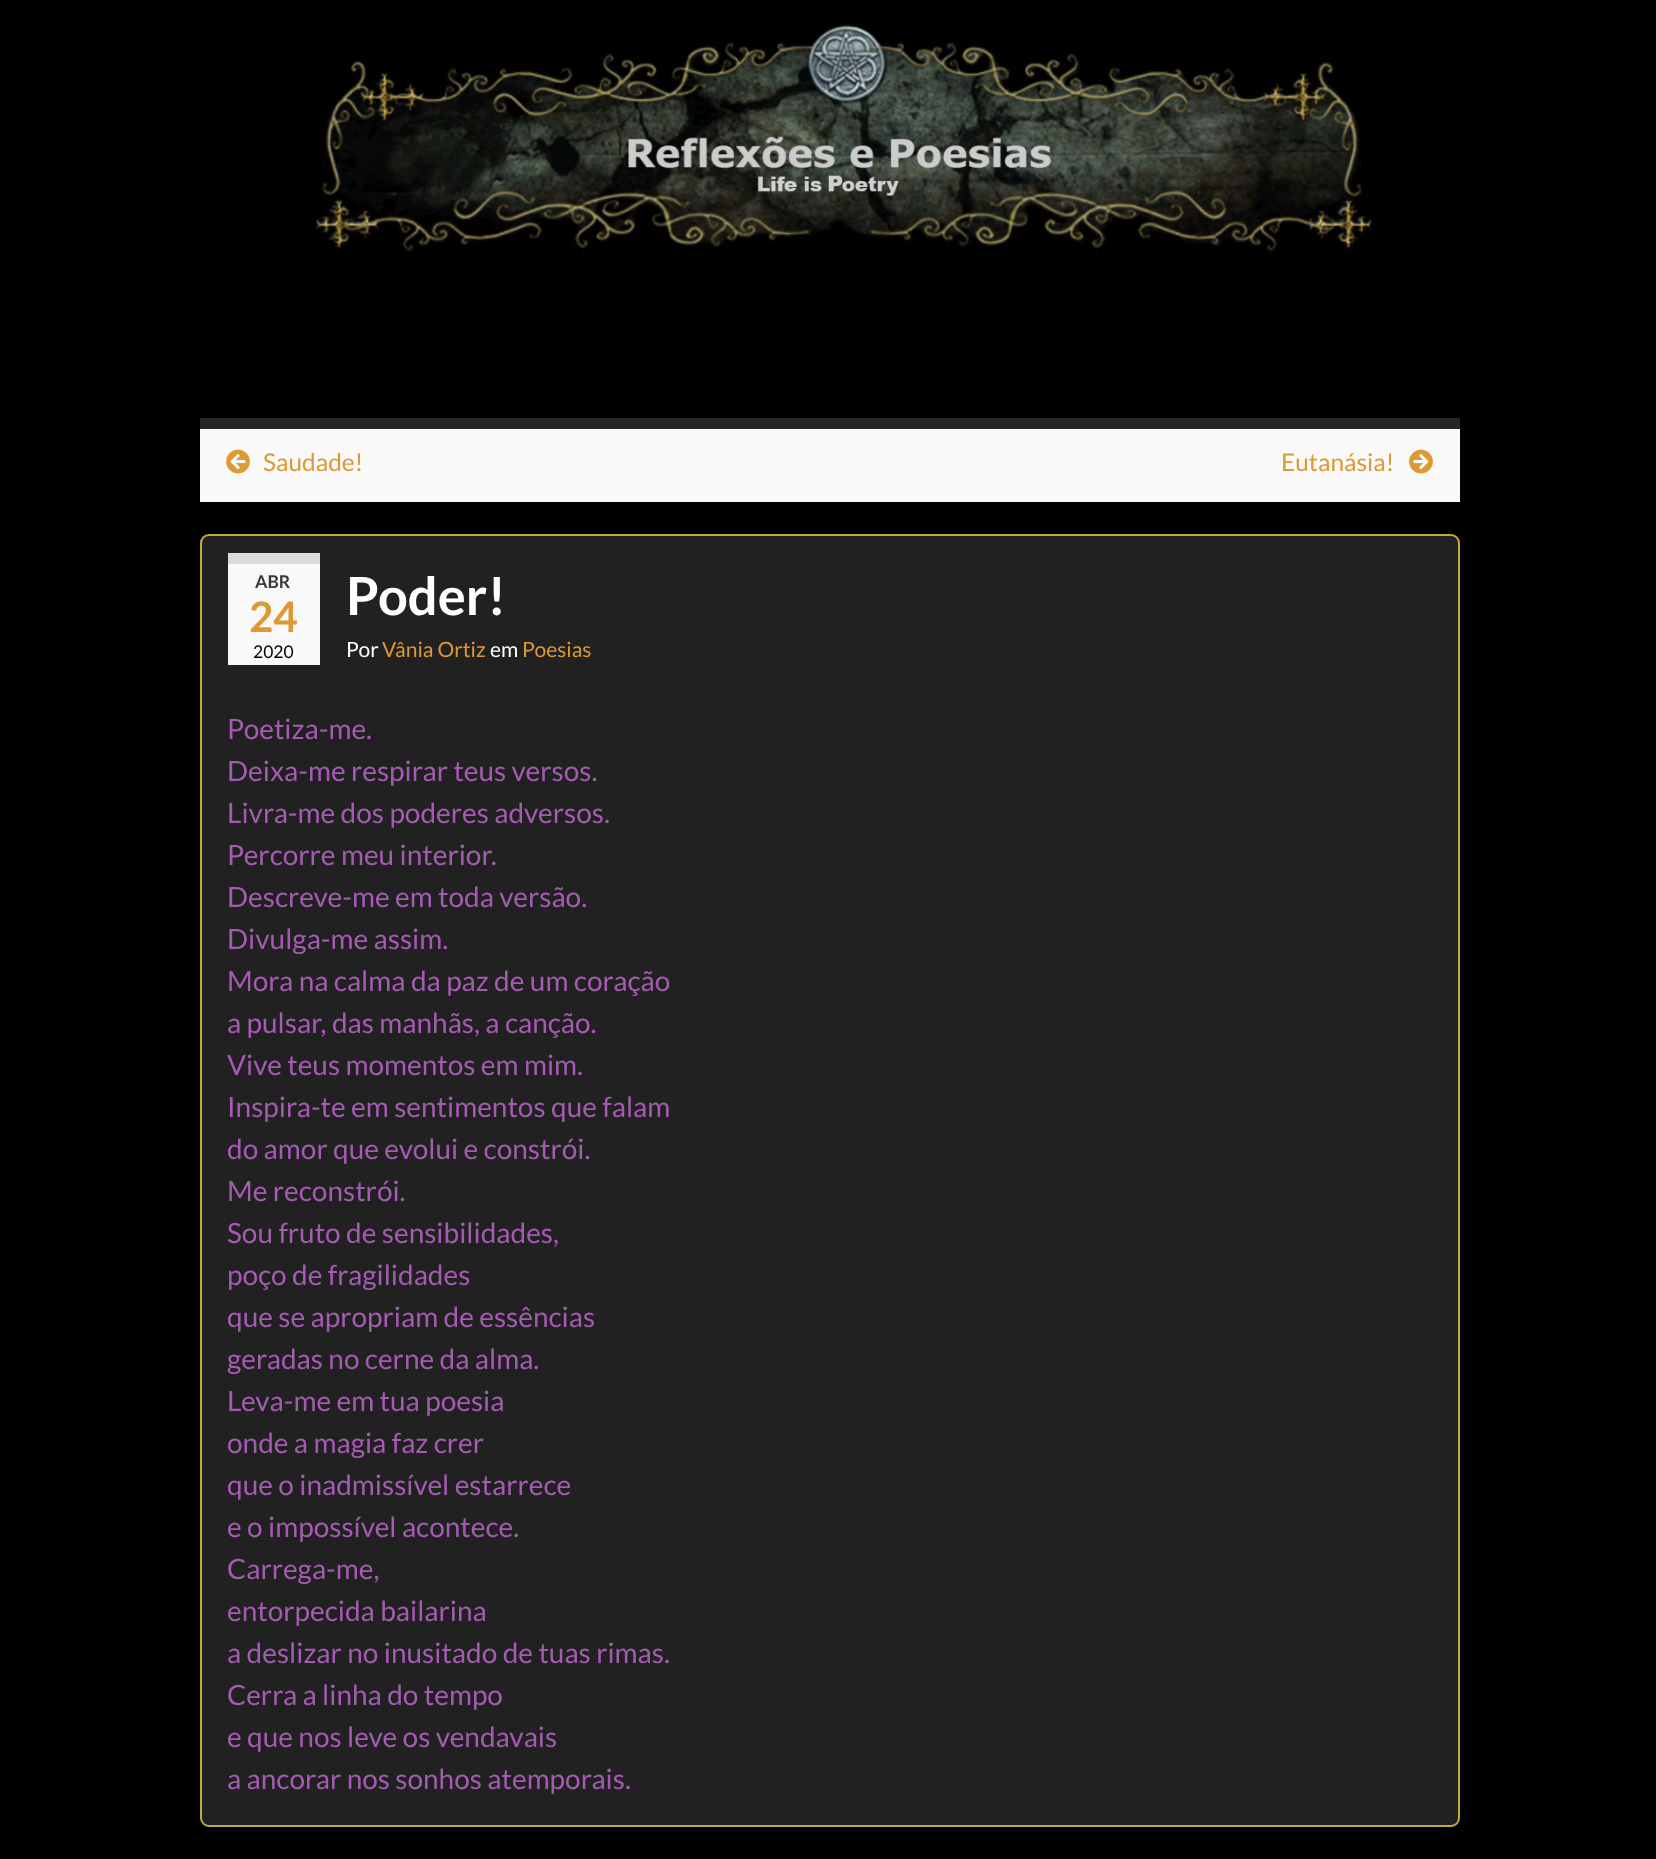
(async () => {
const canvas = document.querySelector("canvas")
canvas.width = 1656
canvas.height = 1859
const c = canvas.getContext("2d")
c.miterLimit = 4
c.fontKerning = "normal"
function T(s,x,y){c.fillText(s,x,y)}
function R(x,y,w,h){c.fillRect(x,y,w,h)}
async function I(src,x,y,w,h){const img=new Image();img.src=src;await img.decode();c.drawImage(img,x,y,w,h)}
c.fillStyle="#000"
R(0,0,1656,1859)
await I("1.png",0,21,1656,257)
c.fillStyle="#f9f9f9"
R(200,429,1260,73)
c.fillStyle="#262626"
R(200,418,1260,11)
await I("2.png",226,449,24,25)
c.font="24.5px Lato"
c.fillStyle="#d93"
T("Saudade!",263,471)
T("Eutanásia!",1281,471)
await I("3.png",1409,449,24,25)
c.fillStyle="#212121"
c.beginPath()
c.roundRect(201,535,1258,1291,8)
c.fill()
c.strokeStyle="#c7a738"
c.lineWidth=2
c.stroke()
c.fillStyle="#f9f9f9"
R(228,564,92,101)
c.fillStyle="#dbdbdb"
R(228,553,92,11)
c.font="bold 17.5px Lato"
c.fillStyle="#3b383d"
T("ABR",255,588)
c.font="bold 42px Lato"
c.fillStyle="#d93"
T("24",249,632)
c.font="17.5px Lato"
c.fillStyle="#000"
T("2020",253,658)
c.font="bold 52.5px Lato"
c.fillStyle="#fff"
T("Poder!",346,615)
c.font="21px Lato"
T("Por",346,657)
c.fillStyle="#d93"
T("Vânia Ortiz",382,657)
c.fillStyle="#fff"
T("em",490,657)
c.fillStyle="#d93"
T("Poesias",522,657)
c.font="28px Lato"
c.fillStyle="#a45bb1"
T("Poetiza-me.",227,739)
T("Deixa-me respirar teus versos.",227,781)
T("Livra-me dos poderes adversos.",227,823)
T("Percorre meu interior.",227,865)
T("Descreve-me em toda versão.",227,907)
T("Divulga-me assim.",227,949)
T("Mora na calma da paz de um coração",227,991)
T("a pulsar, das manhãs, a canção.",227,1033)
T("Vive teus momentos em mim.",227,1075)
T("Inspira-te em sentimentos que falam",227,1117)
T("do amor que evolui e constrói.",227,1159)
T("Me reconstrói.",227,1201)
T("Sou fruto de sensibilidades,",227,1243)
T("poço de fragilidades",227,1285)
T("que se apropriam de essências",227,1327)
T("geradas no cerne da alma.",227,1369)
T("Leva-me em tua poesia",227,1411)
T("onde a magia faz crer",227,1453)
T("que o inadmissível estarrece",227,1495)
T("e o impossível acontece.",227,1537)
T("Carrega-me,",227,1579)
T("entorpecida bailarina",227,1621)
T("a deslizar no inusitado de tuas rimas.",227,1663)
T("Cerra a linha do tempo",227,1705)
T("e que nos leve os vendavais",227,1747)
T("a ancorar nos sonhos atemporais.",227,1789)
})()
